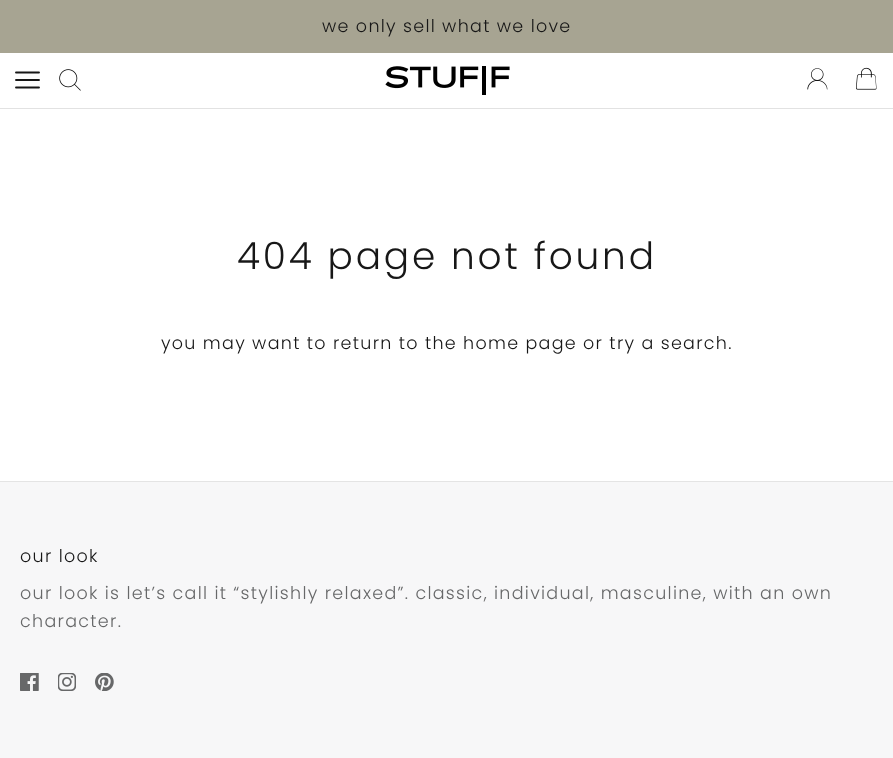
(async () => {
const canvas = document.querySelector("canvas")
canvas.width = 893
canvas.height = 758
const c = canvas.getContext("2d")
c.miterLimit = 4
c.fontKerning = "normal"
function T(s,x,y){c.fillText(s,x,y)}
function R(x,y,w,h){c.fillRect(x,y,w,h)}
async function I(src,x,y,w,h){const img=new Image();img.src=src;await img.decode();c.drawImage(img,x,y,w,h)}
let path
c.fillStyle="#fff"
R(0,0,893,758)
c.fillStyle="#a7a492"
R(0,0,893,53)
c.letterSpacing="1.3px"
c.font="300 17.5px Poppins"
c.fillStyle="#171717"
T("we only sell what we love",322,32)
c.fillStyle="#e2e2e2"
R(0,108,893,1)
path = new Path2D("M16 80h23m-23-7.5h23m-23 15h23")
c.strokeStyle="#171717"
c.lineWidth=1.9
c.lineCap="round"
c.lineJoin="round"
c.stroke(path)
await I("1.png",59,69,22,22)
await I("2.png",385,66,125,29)
await I("3.png",807,68,21,22)
await I("4.png",856,67,21,23)
c.letterSpacing="2.8px"
c.font="300 37.5px Poppins"
c.fillStyle="#171717"
T("404 page not found",237,269)
c.letterSpacing="1.3px"
c.font="300 17.5px Poppins"
T("you may want to return to the home page or try a search.",161,349)
c.fillStyle="#f7f7f8"
R(0,482,893,276)
c.fillStyle="#e4e4e4"
R(0,481,893,1)
c.fillStyle="#171717"
T("our look",20,562)
c.fillStyle="#676869"
T("our look is let’s call it “stylishly relaxed”. classic, individual, masculine, with an own",20,599)
T("character.",20,627)
await I("5.png",20,673,19,18)
await I("6.png",58,673,18,18)
await I("7.png",95,673,19,18)
})()
